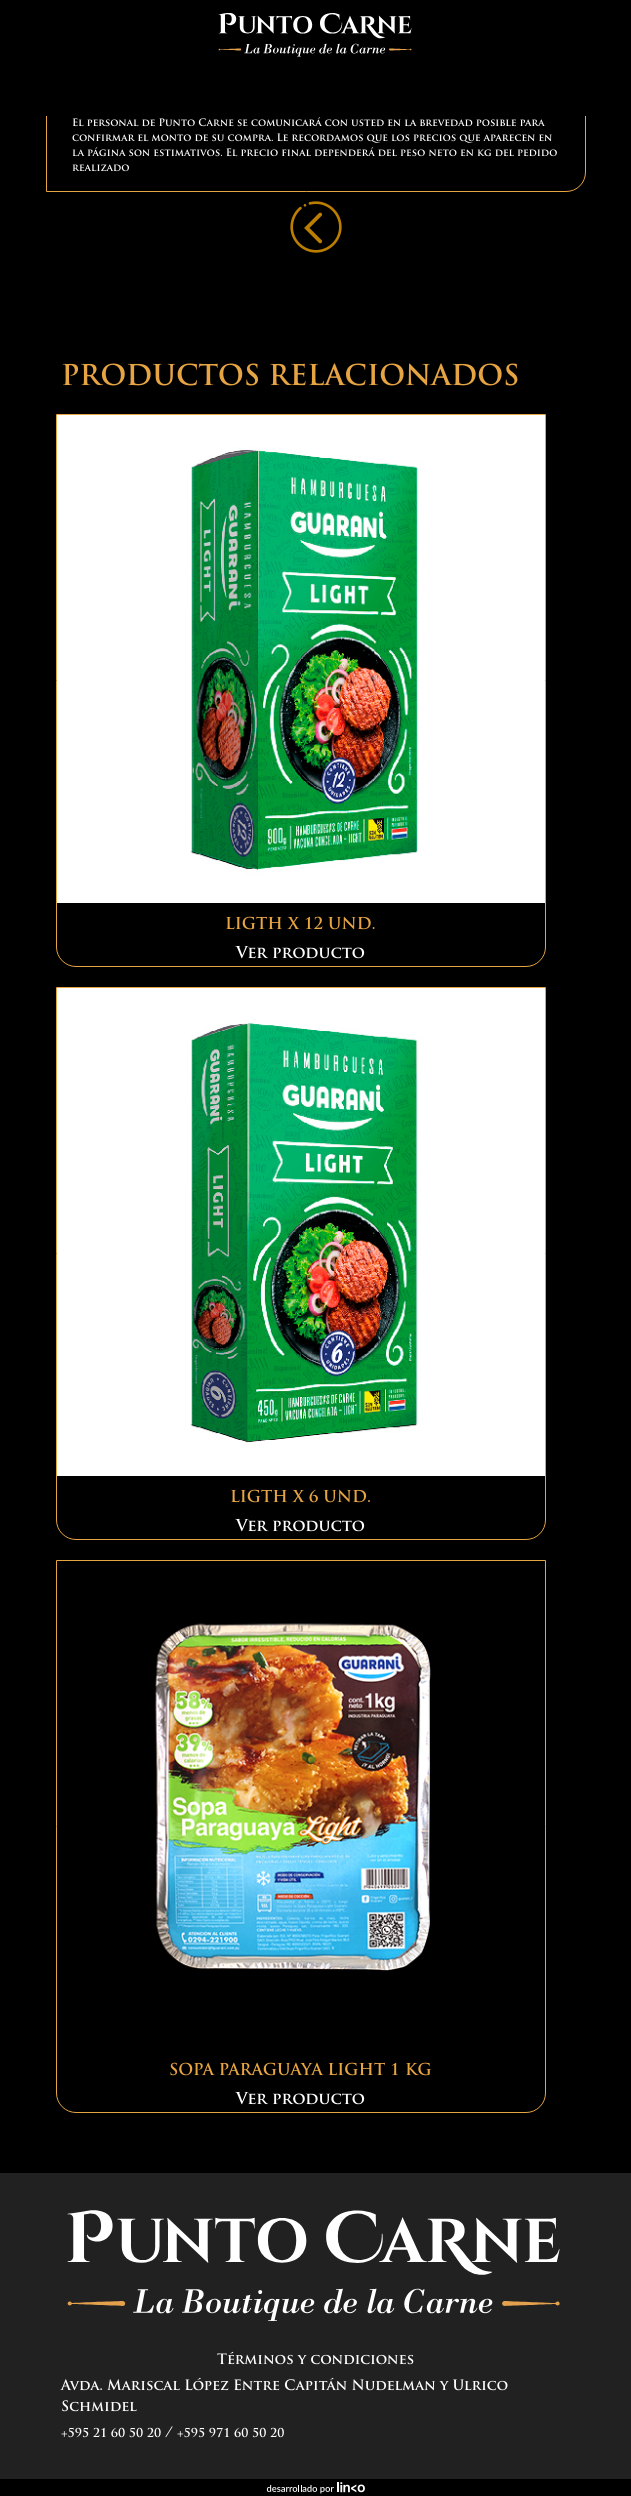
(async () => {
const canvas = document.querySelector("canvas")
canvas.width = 631
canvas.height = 2496
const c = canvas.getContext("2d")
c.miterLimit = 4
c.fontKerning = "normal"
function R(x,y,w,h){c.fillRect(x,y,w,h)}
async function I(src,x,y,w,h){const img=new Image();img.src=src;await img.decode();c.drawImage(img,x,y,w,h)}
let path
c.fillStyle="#000"
R(0,0,631,2496)
path = new Path2D("M46.5-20.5h519.5c11 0 19.5 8.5 19.5 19.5v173c0 11-8.5 19.5-19.5 19.5h-519.5z")
c.strokeStyle="#e6a443"
c.stroke(path)
await I("1.png",72,117,473,10)
await I("2.png",72,133,480,10)
await I("3.png",72,147,485,10)
await I("4.png",72,164,57,8)
await I("5.png",290,201,52,52)
R(46,0,540,116)
await I("6.png",218,13,194,44)
await I("7.png",62,363,456,23)
c.beginPath()
c.roundRect(56.5,414.5,489,552,[0,0,19.5,19.5])
c.stroke()
await I("8.png",57,415,488,488)
await I("9.png",226,916,149,14)
await I("10.png",235,945,130,14)
c.beginPath()
c.roundRect(56.5,987.5,489,552,[0,0,19.5,19.5])
c.stroke()
await I("11.png",57,988,488,488)
await I("12.png",231,1489,139,14)
await I("10.png",235,1518,130,14)
c.beginPath()
c.roundRect(56.5,1560.5,489,552,[0,0,19.5,19.5])
c.stroke()
await I("13.png",155,1623,276,348)
await I("14.png",170,2062,228,14)
await I("15.png",406,2062,25,14)
await I("10.png",235,2091,130,14)
c.fillStyle="#212121"
R(0,2173,631,306)
await I("16.png",67,2210,493,111)
await I("17.png",217,2351,197,14)
await I("18.png",60,2377,448,14)
await I("19.png",62,2400,75,12)
await I("20.png",61,2427,100,11)
await I("21.png",165,2426,8,12)
await I("22.png",177,2427,107,11)
await I("23.png",266,2482,99,12)
})()
